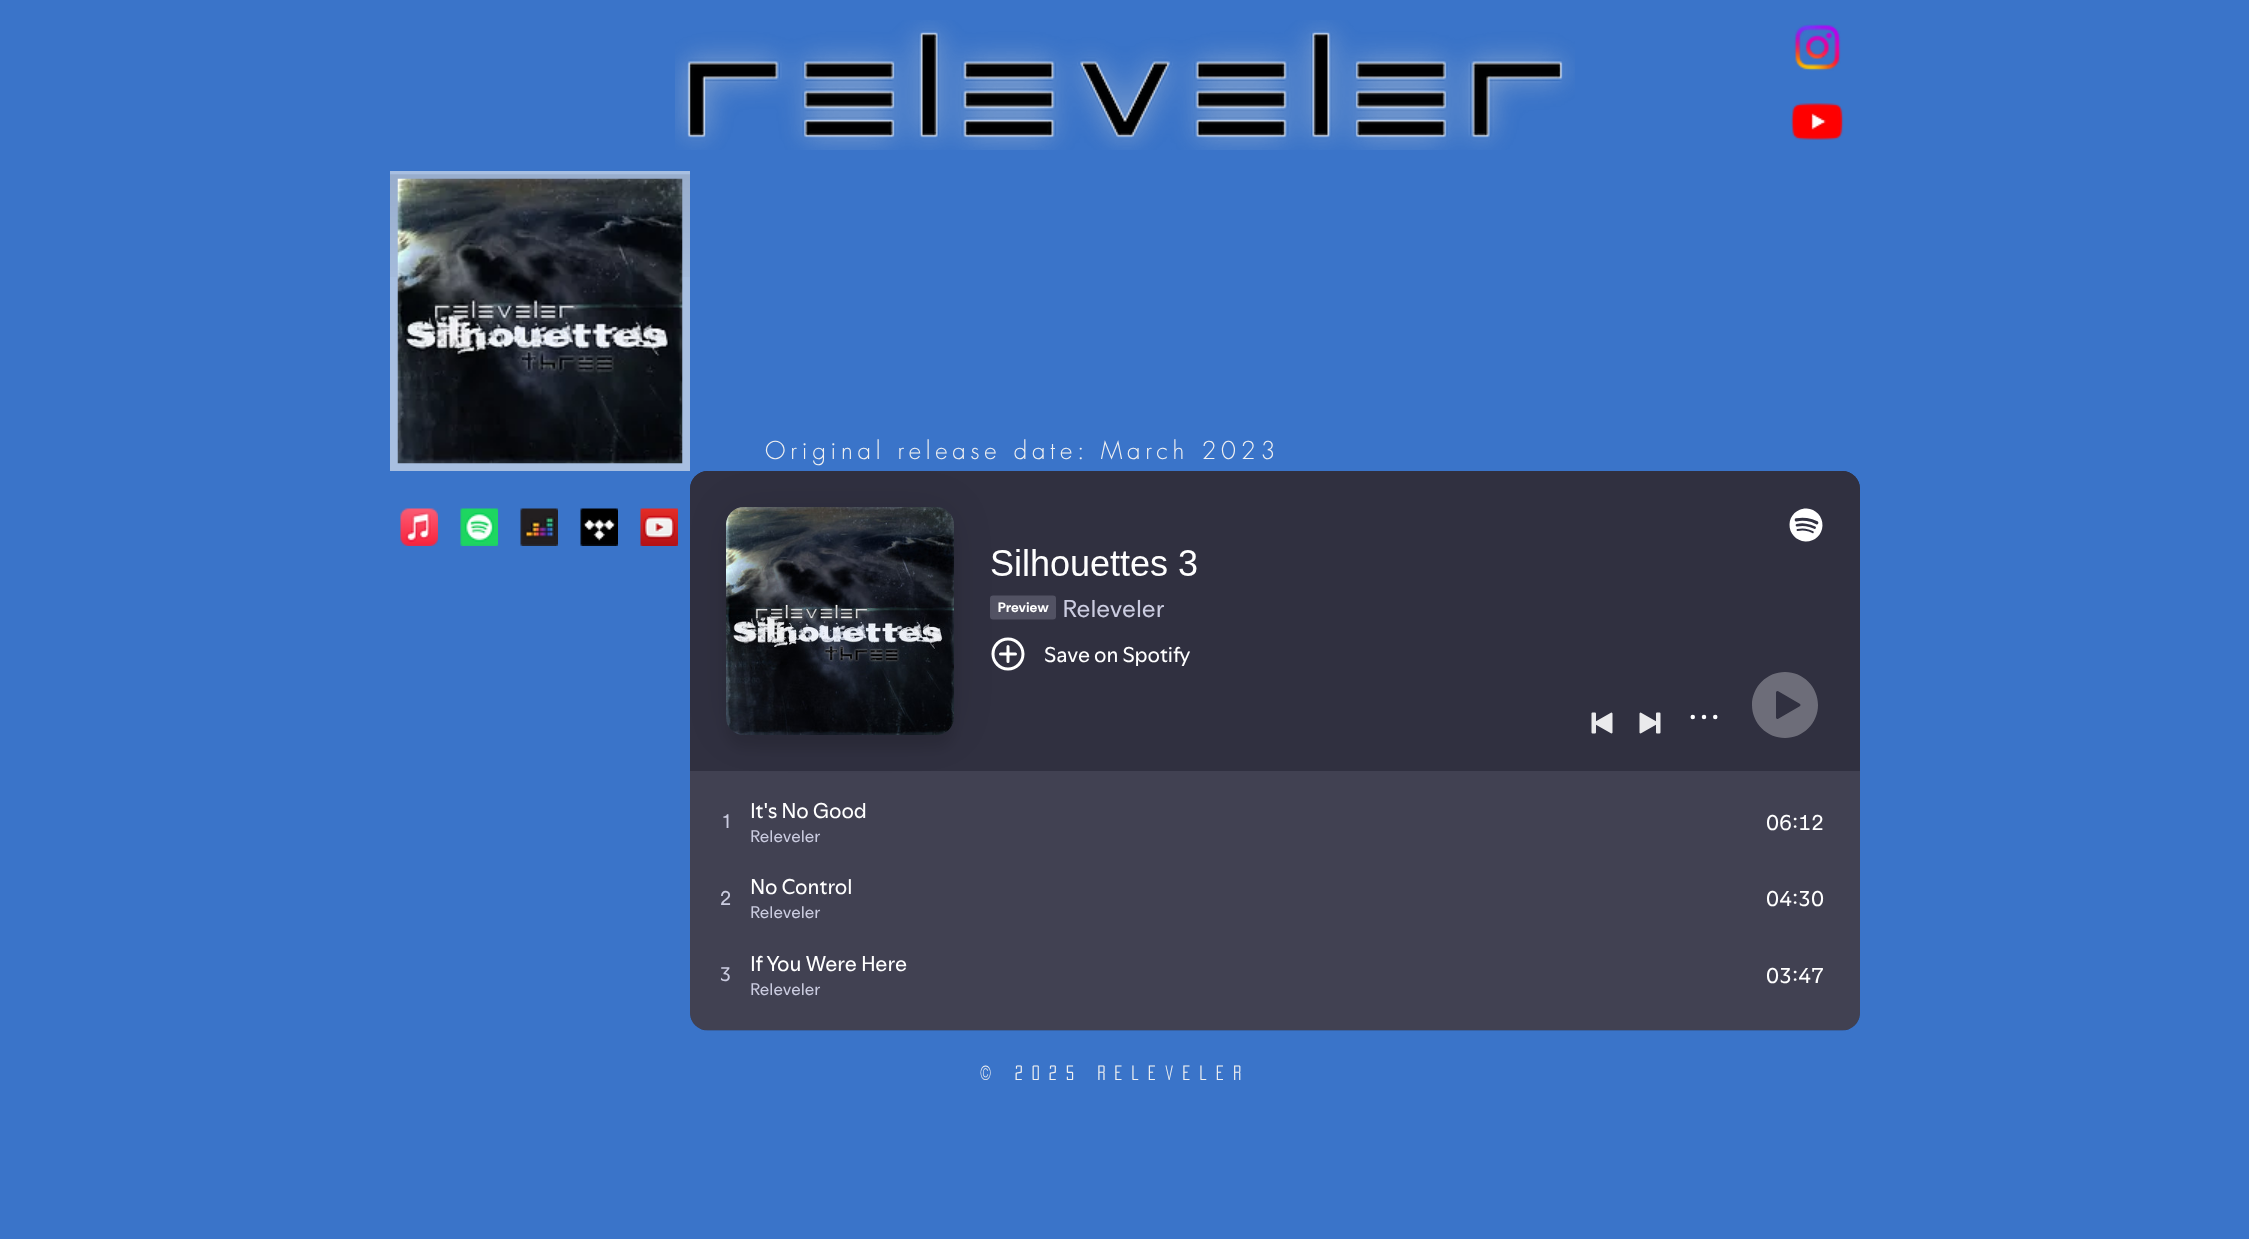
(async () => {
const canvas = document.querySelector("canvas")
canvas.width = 2249
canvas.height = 1239
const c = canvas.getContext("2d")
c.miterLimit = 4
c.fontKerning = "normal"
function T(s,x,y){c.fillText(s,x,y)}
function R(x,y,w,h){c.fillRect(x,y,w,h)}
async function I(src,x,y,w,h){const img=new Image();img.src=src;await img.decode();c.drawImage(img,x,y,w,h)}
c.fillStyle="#3a74c9"
R(0,0,2249,1239)
await I("1.png",675,20,900,130)
await I("2.png",1794,24,47,47)
await I("3.png",1791,103,53,37)
c.fillStyle="#a8bfe1"
R(390,171,300,300)
await I("4.png",390,174,300,103)
await I("5.png",397,178,286,286)
c.letterSpacing="4.8px"
c.font="300 24px futura"
c.fillStyle="#f1f1f1"
T("Original release date: March 2023",765,459)
await I("6.png",400,508,38,38)
await I("7.png",460,508,38,38)
await I("8.png",520,508,38,38)
await I("9.png",580,508,38,38)
await I("10.png",640,508,38,38)
await I("11.png",690,471,1170,560)
c.letterSpacing="9px"
c.font="18px 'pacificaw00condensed'"
T("© 2025 releveleR",980,1080)
})()
